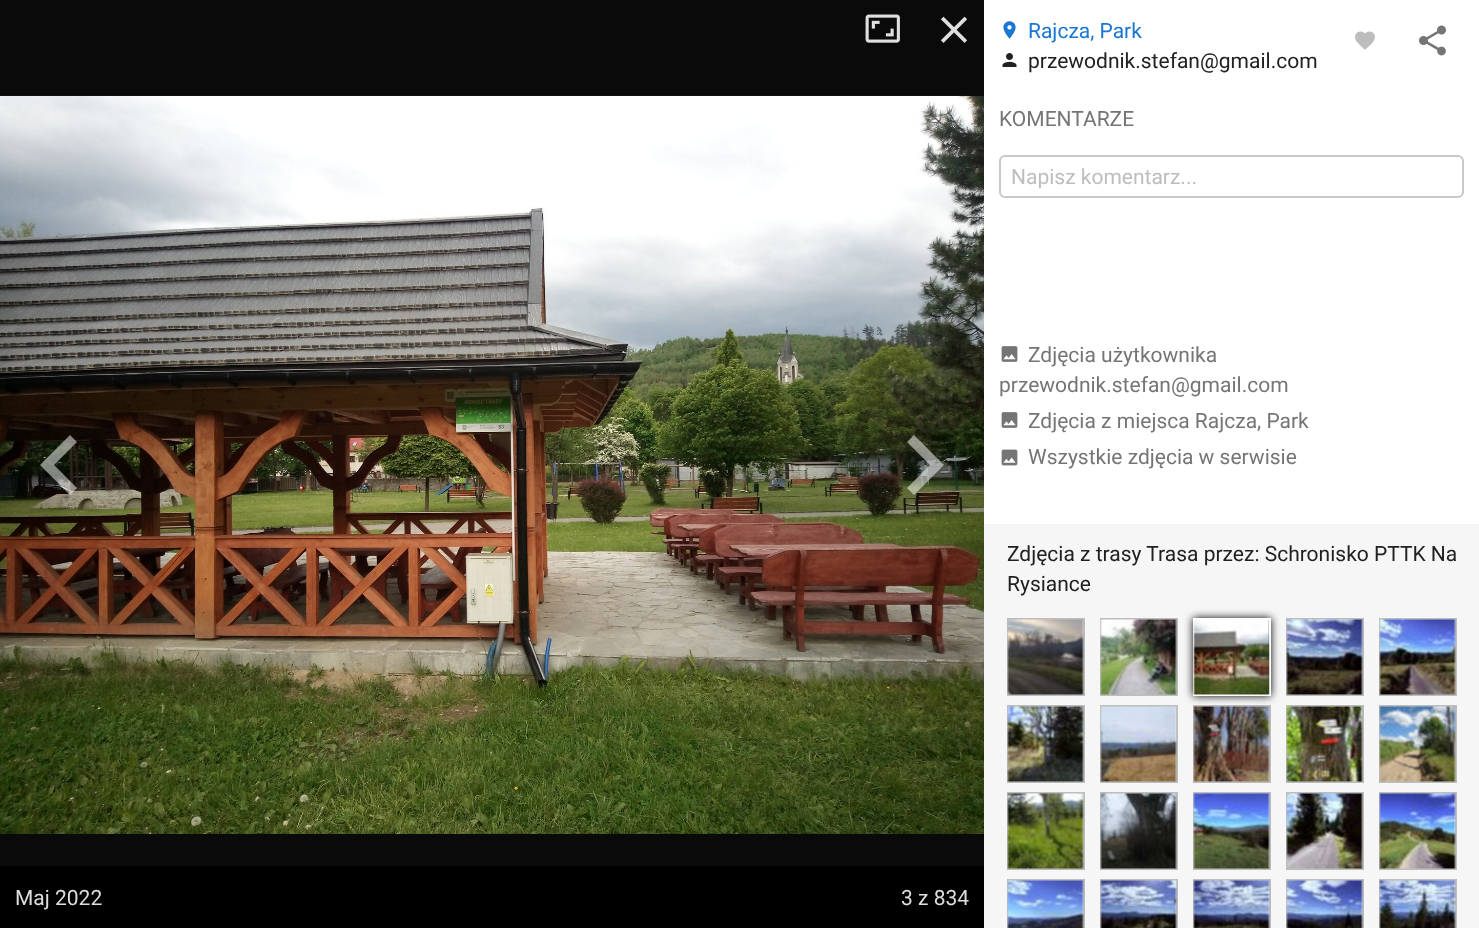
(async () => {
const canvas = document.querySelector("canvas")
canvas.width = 1479
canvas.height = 928
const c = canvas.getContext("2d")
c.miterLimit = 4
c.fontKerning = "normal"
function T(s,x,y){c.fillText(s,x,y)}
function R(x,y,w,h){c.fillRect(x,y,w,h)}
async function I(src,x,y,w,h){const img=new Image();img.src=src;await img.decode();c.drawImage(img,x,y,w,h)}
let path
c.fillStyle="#0a0a0a"
R(0,0,1479,928)
c.fillStyle="#fff"
R(984,0,495,524)
await I("1.png",1003,21,13,18)
c.font="21px Roboto"
c.fillStyle="#1976d2"
T("Rajcza, Park",1028,38)
await I("2.png",1002,53,15,14)
c.fillStyle="#212121"
T("przewodnik.stefan@gmail.com",1028,68)
await I("3.png",1355,31,20,19)
await I("4.png",1419,25,27,31)
c.fillStyle="#757575"
T("KOMENTARZE",999,126)
c.beginPath()
c.roundRect(1000,156,463,41,5)
c.strokeStyle="#c8c8c8"
c.lineWidth=2
c.stroke()
c.fillStyle="#bdbdbd"
T("Napisz komentarz...",1011,184)
await I("5.png",1001,346,17,16)
c.fillStyle="#757575"
T("Zdjęcia użytkownika",1028,362)
T("przewodnik.stefan@gmail.com",999,392)
await I("5.png",1001,412,17,16)
T("Zdjęcia z miejsca Rajcza, Park",1028,428)
await I("6.png",1001,449,17,17)
T("Wszystkie zdjęcia w serwisie",1028,464)
c.fillStyle="#f6f6f6"
R(984,524,495,404)
c.fillStyle="#212121"
T("Zdjęcia z trasy Trasa przez: Schronisko PTTK Na",1007,561)
T("Rysiance",1007,591)
c.strokeStyle="#bdbdbd"
c.strokeRect(1008,619,76,76)
await I("7.png",1007,619,77,76)
c.strokeRect(1101,619,76,76)
await I("8.png",1100,619,77,76)
c.fillStyle="#000"
c.filter="blur(4px)"
c.beginPath()
c.rect(1193,618,78,78)
c.fill()
c.filter="none"
c.strokeStyle="#fff"
c.strokeRect(1194,619,76,76)
await I("9.png",1193,619,77,76)
c.strokeStyle="#bdbdbd"
c.strokeRect(1287,619,76,76)
await I("10.png",1286,619,77,76)
c.strokeRect(1380,619,76,76)
await I("11.png",1379,619,77,76)
c.strokeRect(1008,706,76,76)
await I("12.png",1007,706,77,76)
c.strokeRect(1101,706,76,76)
await I("13.png",1100,706,77,76)
c.strokeRect(1194,706,76,76)
await I("14.png",1193,706,77,76)
c.strokeRect(1287,706,76,76)
await I("15.png",1286,706,77,76)
c.strokeRect(1380,706,76,76)
await I("16.png",1379,706,77,76)
c.strokeRect(1008,793,76,76)
await I("17.png",1007,793,77,76)
c.strokeRect(1101,793,76,76)
await I("18.png",1100,793,77,76)
c.strokeRect(1194,793,76,76)
await I("19.png",1193,793,77,76)
c.strokeRect(1287,793,76,76)
await I("20.png",1286,793,77,76)
c.strokeRect(1380,793,76,76)
await I("21.png",1379,793,77,76)
c.strokeRect(1008,880,76,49)
await I("22.png",1007,880,77,48)
c.strokeRect(1101,880,76,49)
await I("23.png",1100,880,77,48)
c.strokeRect(1194,880,76,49)
await I("24.png",1193,880,77,48)
c.strokeRect(1287,880,76,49)
await I("25.png",1286,880,77,48)
c.strokeRect(1380,880,76,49)
await I("26.png",1379,880,77,48)
await I("27.png",865,14,35,29)
await I("28.png",941,16,26,27)
await I("29.png",0,95,984,739)
c.fillStyle="#ffffff80"
path = new Path2D("M77 442l-7-7l-30 30l30 30l7-7l-23-23z")
c.fill(path)
path = new Path2D("M914 435l-7 7l23 23l-23 23l7 7l30-30z")
c.fill(path)
c.fillStyle="#000"
R(0,866,984,62)
c.fillStyle="#dedede"
T("Maj 2022",15,905)
T("3 z 834",901,905)
})()
